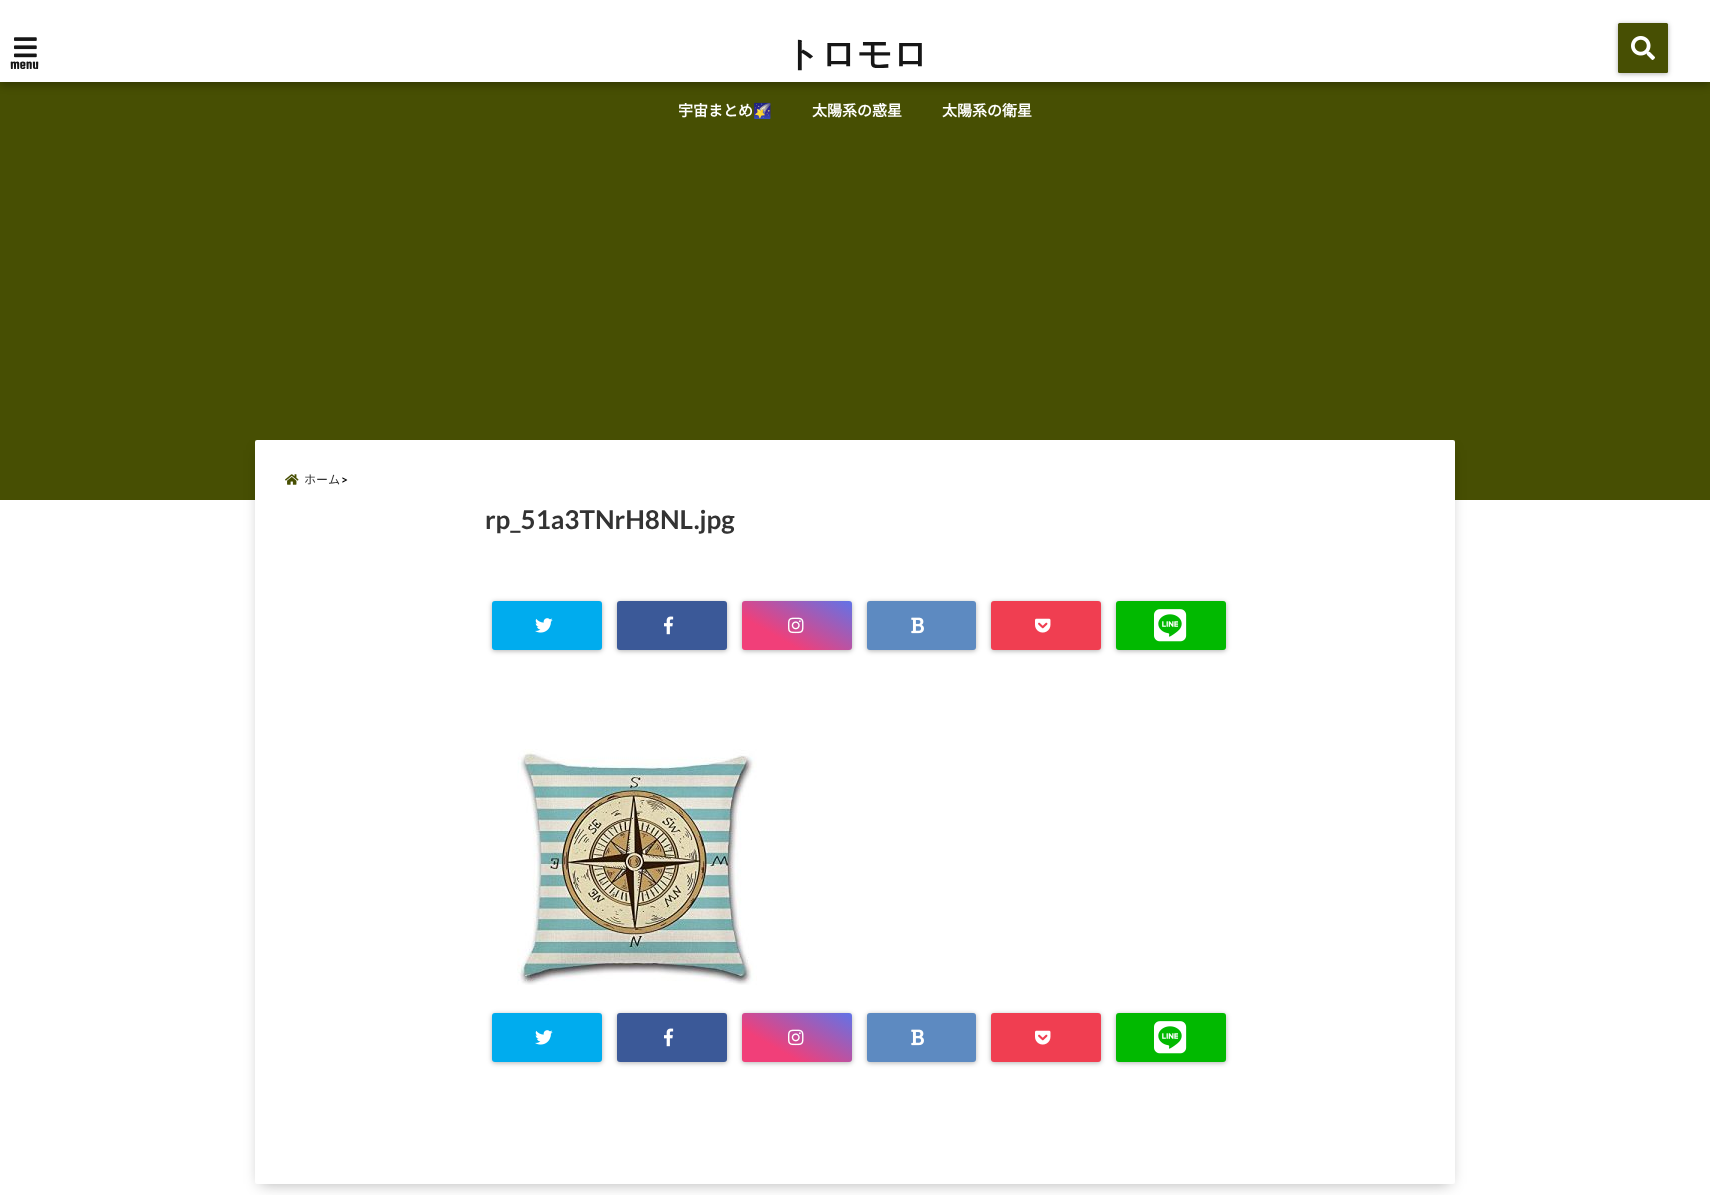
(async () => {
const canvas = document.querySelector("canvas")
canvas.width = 1710
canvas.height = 1195
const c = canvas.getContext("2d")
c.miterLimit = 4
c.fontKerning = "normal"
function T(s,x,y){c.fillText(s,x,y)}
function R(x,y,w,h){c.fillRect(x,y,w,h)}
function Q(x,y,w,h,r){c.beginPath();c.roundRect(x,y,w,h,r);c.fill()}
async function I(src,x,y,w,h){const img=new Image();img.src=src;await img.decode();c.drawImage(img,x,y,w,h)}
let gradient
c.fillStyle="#fff"
R(0,0,1710,1195)
c.fillStyle="#474f03"
R(0,440,1710,60)
c.fillStyle="#0000004d"
c.filter="blur(7.5px)"
c.beginPath()
c.rect(260,450,1190,734)
c.fill()
c.filter="none"
c.fillStyle="#474f03"
R(0,82,1710,358)
c.fillStyle="#0000004d"
c.filter="blur(4px)"
c.beginPath()
c.rect(0,3,1710,82)
c.fill()
c.filter="none"
c.fillStyle="#fff"
R(0,0,1710,82)
await I("1.png",14,37,23,21)
c.font="bold 12px Denk One"
c.fillStyle="#161616"
T("menu",10,69)
c.font="bold 35px WenQuanYi Zen Hei"
T("トロモロ",785,66)
c.fillStyle="#0000004d"
c.filter="blur(2.5px)"
c.beginPath()
c.roundRect(1618,24,50,50,1.5)
c.fill()
c.filter="none"
c.fillStyle="#474f03"
Q(1618,23,50,50,1.5)
await I("2.png",1631,36,24,24)
c.font="bold 15px Noto Sans JP"
c.fillStyle="#fff"
T("宇宙まとめ",678,116)
c.font="bold 15px Noto Color Emoji"
T("🌠",753,116)
c.font="bold 15px Noto Sans JP"
T("太陽系の惑星",812,116)
T("太陽系の衛星",942,116)
Q(255,440,1200,744,2)
await I("3.png",285,474,14,11)
c.font="100 12px Noto Sans JP"
c.fillStyle="#333"
T("ホーム",304,484)
c.font="bold 12px Lato"
c.fillStyle="#010101"
T(">",341,484)
c.font="bold 26px Lato"
c.fillStyle="#333"
T("rp_51a3TNrH8NL.jpg",485,529)
c.fillStyle="#0000004d"
c.filter="blur(2.5px)"
c.beginPath()
c.roundRect(492,602,110,49,3)
c.fill()
c.filter="none"
c.fillStyle="#00acee"
Q(492,601,110,49,3)
await I("4.png",535,618,18,15)
c.fillStyle="#0000004d"
c.filter="blur(2.5px)"
c.beginPath()
c.roundRect(617,602,110,49,3)
c.fill()
c.filter="none"
c.fillStyle="#3b5998"
Q(617,601,110,49,3)
await I("5.png",664,616,10,19)
c.fillStyle="#0000004d"
c.filter="blur(2.5px)"
c.beginPath()
c.roundRect(742,602,110,49,3)
c.fill()
c.filter="none"
gradient = c.createLinearGradient(773,668,828,571)
gradient.addColorStop(.26,"#f13f79")
gradient.addColorStop(1,"#427eff")
c.fillStyle = gradient
Q(742,601,110,49,3)
await I("6.png",788,617,16,17)
c.fillStyle="#0000004d"
c.filter="blur(2.5px)"
c.beginPath()
c.roundRect(867,602,109,49,3)
c.fill()
c.filter="none"
c.fillStyle="#5d8ac1"
Q(867,601,109,49,3)
await I("7.png",911,617,13,17)
c.fillStyle="#0000004d"
c.filter="blur(2.5px)"
c.beginPath()
c.roundRect(991,602,110,49,3)
c.fill()
c.filter="none"
c.fillStyle="#f03e51"
Q(991,601,110,49,3)
await I("8.png",1035,618,16,15)
c.fillStyle="#0000004d"
c.filter="blur(2.5px)"
c.beginPath()
c.roundRect(1116,602,110,49,3)
c.fill()
c.filter="none"
c.fillStyle="#01b900"
Q(1116,601,110,49,3)
await I("9.png",1154,609,33,33)
await I("10.png",517,749,240,236)
c.fillStyle="#0000004d"
c.filter="blur(2.5px)"
c.beginPath()
c.roundRect(492,1014,110,49,3)
c.fill()
c.filter="none"
c.fillStyle="#00acee"
Q(492,1013,110,49,3)
await I("4.png",535,1030,18,15)
c.fillStyle="#0000004d"
c.filter="blur(2.5px)"
c.beginPath()
c.roundRect(617,1014,110,49,3)
c.fill()
c.filter="none"
c.fillStyle="#3b5998"
Q(617,1013,110,49,3)
await I("5.png",664,1028,10,19)
c.fillStyle="#0000004d"
c.filter="blur(2.5px)"
c.beginPath()
c.roundRect(742,1014,110,49,3)
c.fill()
c.filter="none"
gradient = c.createLinearGradient(773,1080,828,983)
gradient.addColorStop(.26,"#f13f79")
gradient.addColorStop(1,"#427eff")
c.fillStyle = gradient
Q(742,1013,110,49,3)
await I("6.png",788,1029,16,17)
c.fillStyle="#0000004d"
c.filter="blur(2.5px)"
c.beginPath()
c.roundRect(867,1014,109,49,3)
c.fill()
c.filter="none"
c.fillStyle="#5d8ac1"
Q(867,1013,109,49,3)
await I("7.png",911,1029,13,17)
c.fillStyle="#0000004d"
c.filter="blur(2.5px)"
c.beginPath()
c.roundRect(991,1014,110,49,3)
c.fill()
c.filter="none"
c.fillStyle="#f03e51"
Q(991,1013,110,49,3)
await I("8.png",1035,1030,16,15)
c.fillStyle="#0000004d"
c.filter="blur(2.5px)"
c.beginPath()
c.roundRect(1116,1014,110,49,3)
c.fill()
c.filter="none"
c.fillStyle="#01b900"
Q(1116,1013,110,49,3)
await I("9.png",1154,1021,33,33)
})()
